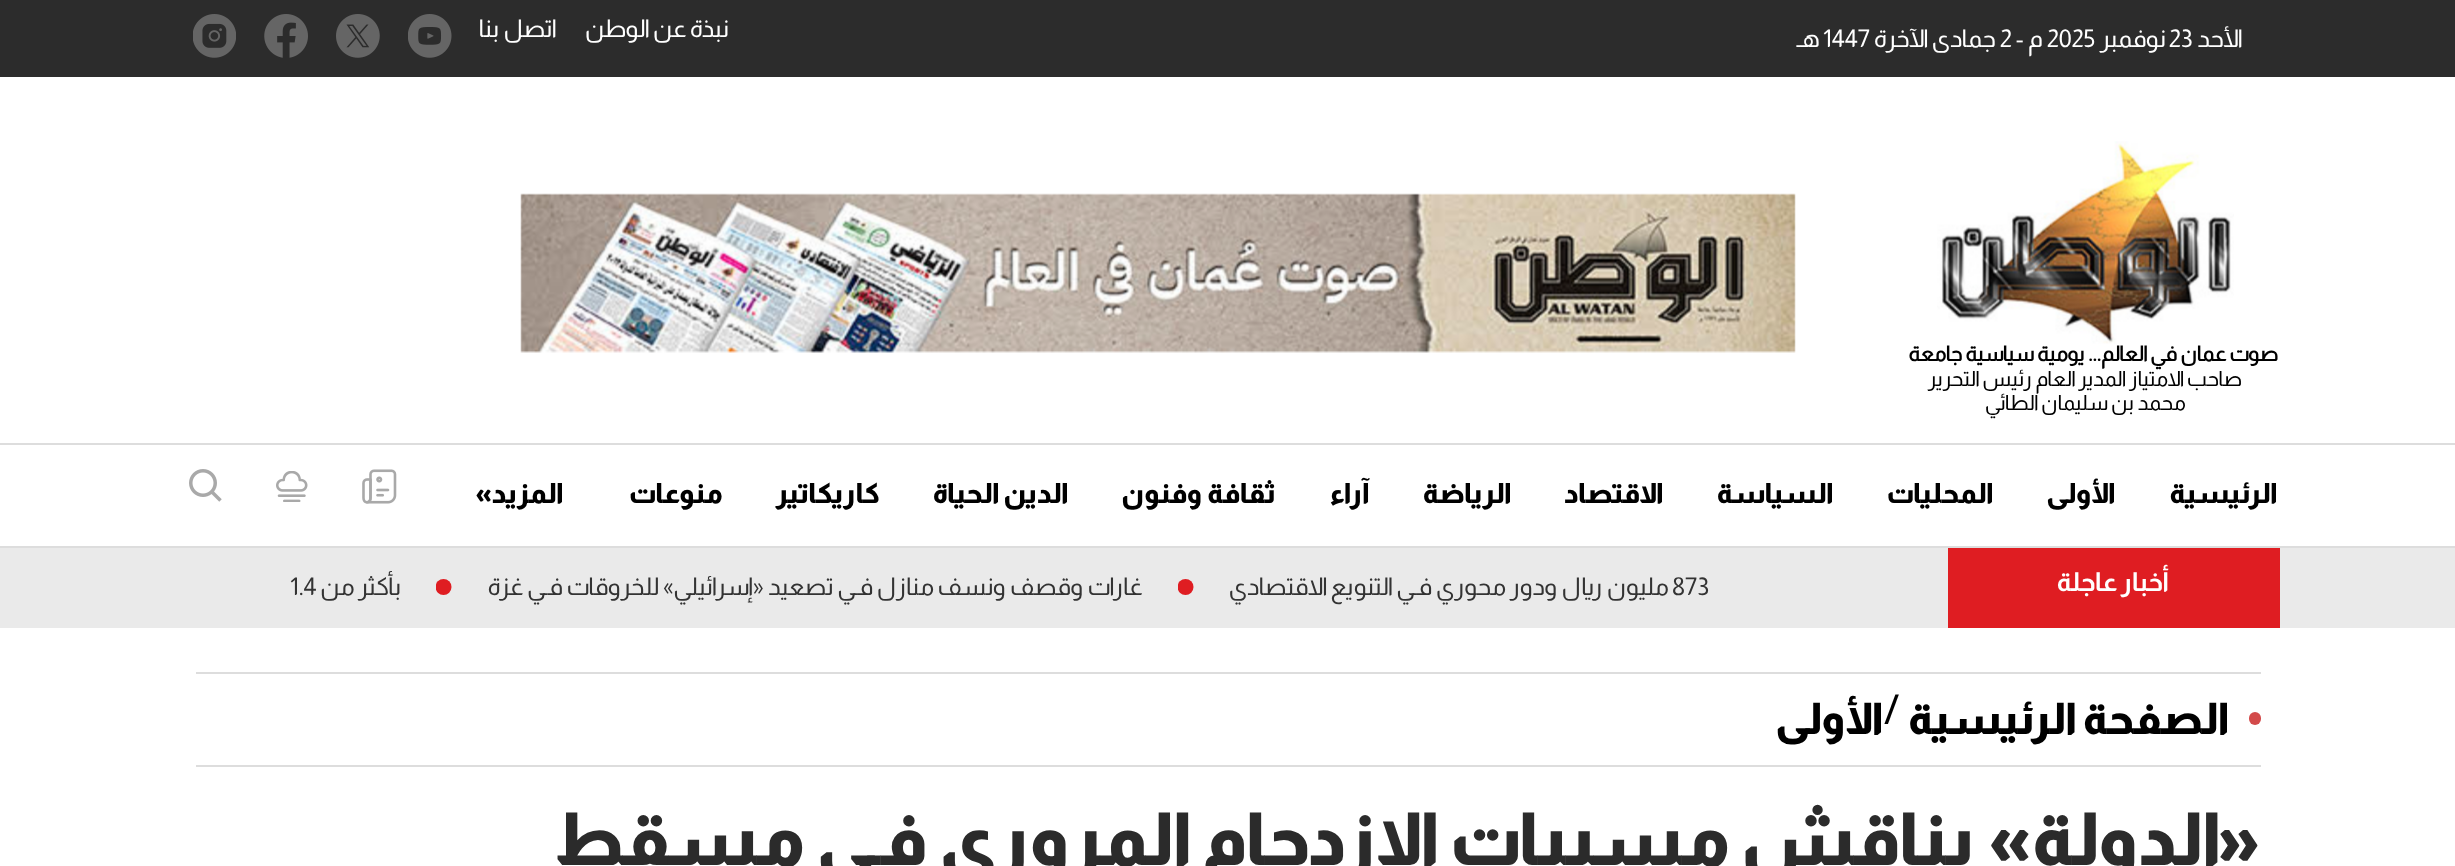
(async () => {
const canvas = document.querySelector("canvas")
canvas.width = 2455
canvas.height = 866
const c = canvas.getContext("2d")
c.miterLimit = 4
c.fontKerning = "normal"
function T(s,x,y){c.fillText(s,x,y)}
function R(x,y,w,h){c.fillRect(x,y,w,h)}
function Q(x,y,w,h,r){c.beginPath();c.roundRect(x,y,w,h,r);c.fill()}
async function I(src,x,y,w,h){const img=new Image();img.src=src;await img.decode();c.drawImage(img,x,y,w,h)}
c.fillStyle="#fff"
R(0,0,2455,866)
c.fillStyle="#2c2c2c"
R(0,0,2455,77)
c.direction="rtl"
c.font="24.5px Almarai"
c.fillStyle="#fff"
T("الأحد",2243,47)
c.direction="ltr"
T("23",2169,47)
c.direction="rtl"
T("نوفمبر",2166,47)
c.direction="ltr"
T("2025",2047,47)
c.direction="rtl"
T("م -",2043,47)
c.direction="ltr"
T("2",2000,47)
c.direction="rtl"
T("جمادى الآخرة",1996,47)
c.direction="ltr"
T("1447",1823,47)
c.direction="rtl"
T("هـ",1820,47)
T("نبذة عن الوطن",729,37)
T("اتصل بنا",557,37)
await I("1.png",408,14,44,44)
await I("2.png",336,14,44,44)
await I("3.png",264,14,44,44)
await I("4.png",193,14,43,44)
await I("5.png",520,193,1276,160)
await I("6.png",1937,141,297,203)
c.font="bold 21px 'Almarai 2'"
c.fillStyle="#000"
T("صوت عمان في العالم... يومية سياسية جامعة",2278,361)
c.font="21px Almarai"
T("صاحب الامتياز المدير العام رئيس التحرير",2242,386)
T("محمد بن سليمان الطائي",2186,410)
c.fillStyle="#ddd"
R(0,443,2455,2)
R(0,546,2455,2)
c.font="800 28px Almarai"
c.fillStyle="#000"
T("الرئيسية",2278,503)
T("الأولى",2116,503)
T("المحليات",1994,503)
T("السياسة",1834,503)
T("الاقتصاد",1664,503)
T("الرياضة",1512,503)
T("آراء",1370,503)
T("ثقافة وفنون",1276,503)
T("الدين الحياة",1069,503)
T("كاريكاتير",880,503)
T("منوعات",723,503)
T("المزيد»",564,503)
await I("7.png",362,469,35,35)
await I("8.png",276,471,32,31)
await I("9.png",189,469,33,33)
c.fillStyle="#eaeaea"
R(0,548,2455,80)
c.fillStyle="#df1d22"
R(1948,548,332,80)
c.font="bold 26.25px Almarai"
c.fillStyle="#fff"
T("أخبار عاجلة",2169,591)
c.direction="ltr"
c.font="24.5px Almarai"
c.fillStyle="#333"
T("873",1672,595)
c.direction="rtl"
T("مليون ريال ودور محوري فـي التنويع الاقتصادي",1669,595)
c.save()
c.beginPath()
c.rect(1178,579,16,16)
c.clip()
c.fillStyle="#df1d22"
c.beginPath()
c.arc(1185.5,587,8,0,7)
c.fill()
c.restore()
T("غارات وقصف ونسف منازل فـي تصعيد «إسرائيلي» للخروقات فـي غزة",1143,595)
c.save()
c.beginPath()
c.rect(436,579,16,16)
c.clip()
c.fillStyle="#df1d22"
c.beginPath()
c.arc(443.5,587,8,0,7)
c.fill()
c.restore()
T("بأكثر من",401,595)
c.direction="ltr"
T("1.4",290,595)
c.fillStyle="#ddd"
R(196,672,2065,2)
R(196,765,2065,2)
c.fillStyle="#d34a4a"
Q(2249,712,12,13,6)
c.direction="rtl"
c.font="800 43.75px Almarai"
c.fillStyle="#000"
T("الصفحة الرئيسية",2230,734)
c.direction="ltr"
c.font="43.75px Almarai"
T("/",1884,724)
c.direction="rtl"
c.font="800 43.75px Almarai"
T("الأولى",1884,734)
c.font="800 73.5px Almarai"
c.fillStyle="#2b2b2b"
T("«الدولة» يناقش مسببات الازدحام المروري فـي مسقط",2260,865)
})()
